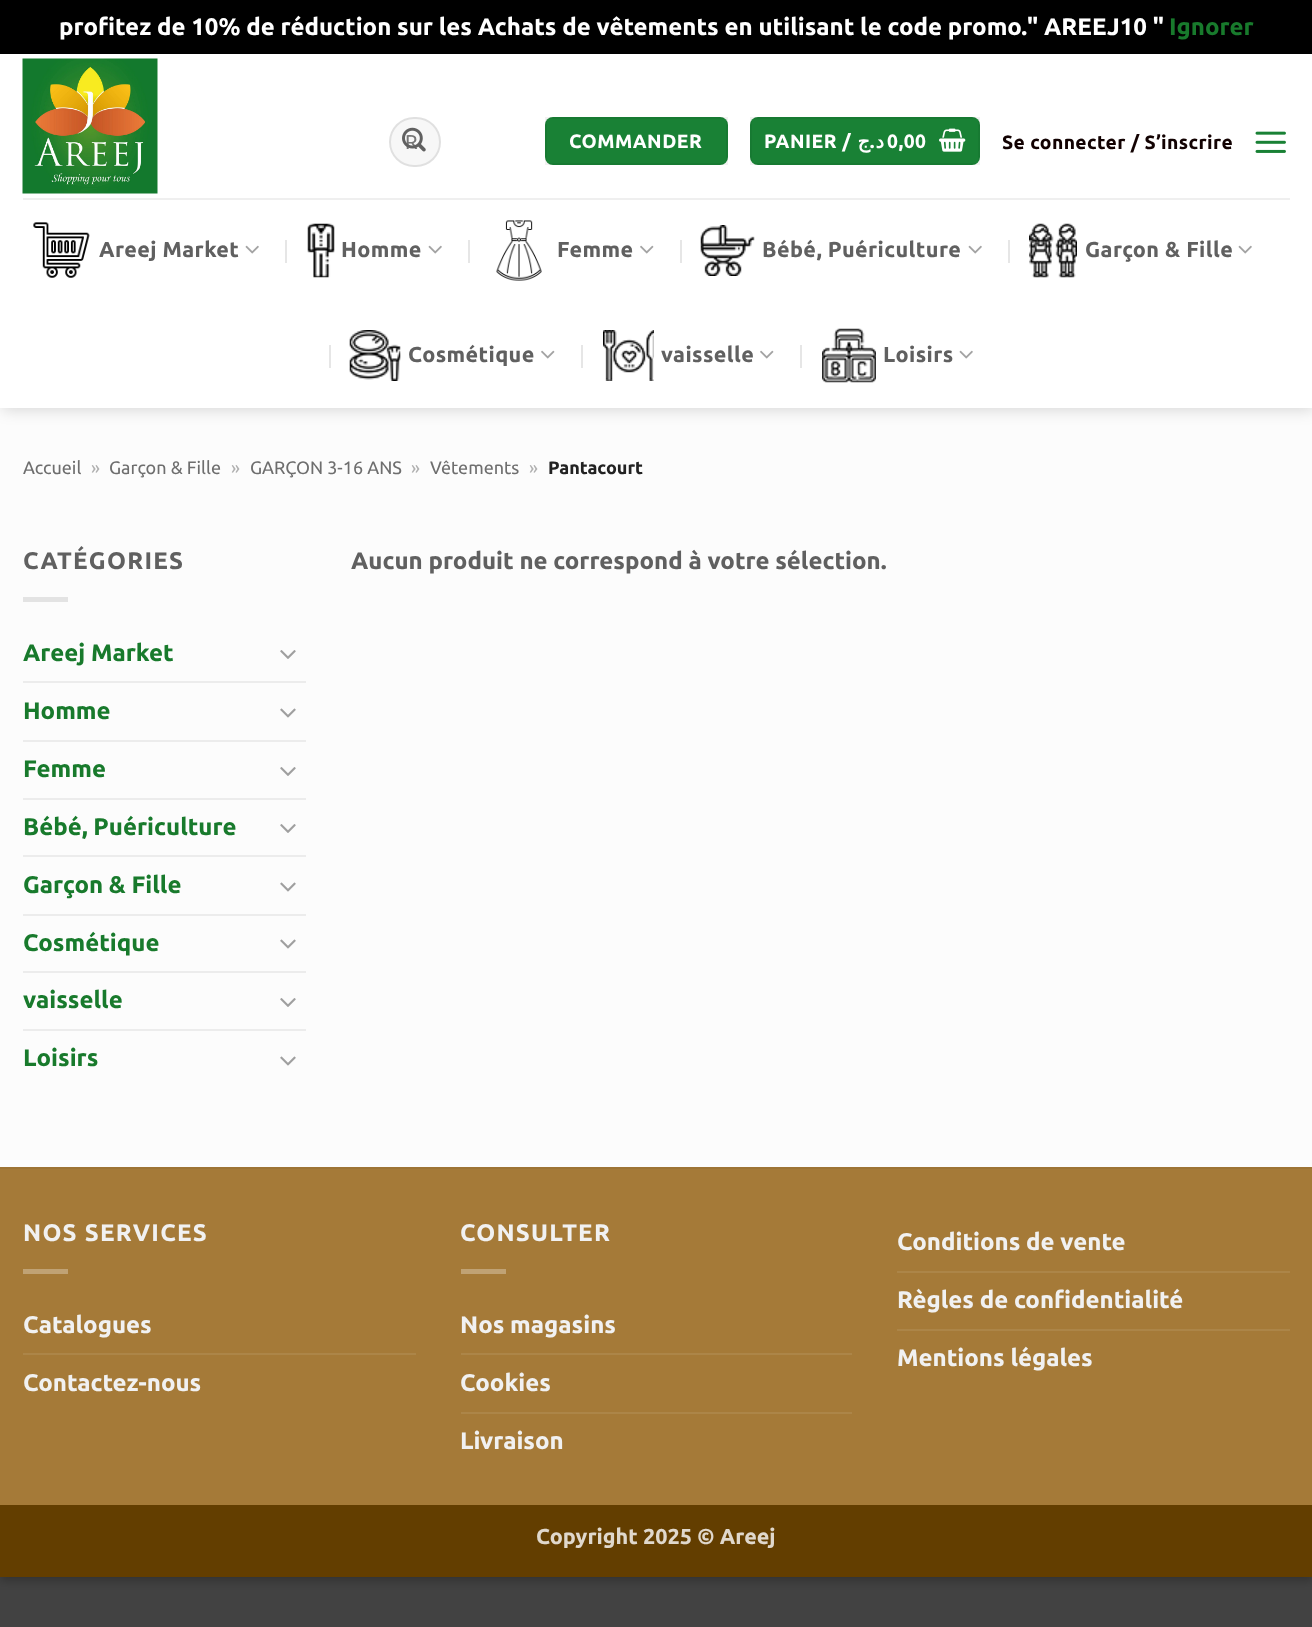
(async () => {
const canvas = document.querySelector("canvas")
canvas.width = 1312
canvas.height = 1627
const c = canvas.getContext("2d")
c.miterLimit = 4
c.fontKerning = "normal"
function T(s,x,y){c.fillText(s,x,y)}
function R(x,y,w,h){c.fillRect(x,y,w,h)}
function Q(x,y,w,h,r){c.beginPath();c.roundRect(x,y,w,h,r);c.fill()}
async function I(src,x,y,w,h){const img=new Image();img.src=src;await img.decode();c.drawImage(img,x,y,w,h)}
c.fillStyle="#424242"
R(0,0,1312,1627)
c.fillStyle="#0000003b"
c.filter="blur(4.5px)"
c.beginPath()
c.rect(0,5,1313,1576)
c.fill()
c.filter="none"
c.fillStyle="#000"
R(0,0,1312,54)
c.font="bold 24px Ubuntu"
c.fillStyle="#fff"
T("profitez de 10% de réduction sur les Achats de vêtements en utilisant le code promo.\" AREEJ10 \"",59,35)
c.fillStyle="#187a2c"
T("Ignorer",1169,35)
c.fillStyle="#fcfcfc"
R(0,408,1312,759)
c.fillStyle="#00000026"
c.filter="blur(7.5px)"
c.beginPath()
c.rect(2,56,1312,354)
c.fill()
c.filter="none"
c.fillStyle="#fff"
R(0,54,1312,354)
await I("1.png",22,58,136,136)
c.fillStyle="#f7f7f7"
Q(389,117,52,50,25)
c.beginPath()
c.roundRect(390,118,50,48,24)
c.strokeStyle="#00000017"
c.lineWidth=2
c.stroke()
c.font="20px Ubuntu"
c.fillStyle="#757575"
T("R",405,149)
await I("2.png",402,127,24,25)
c.fillStyle="#198135"
Q(545,117,183,48,8)
c.strokeStyle="#0000000d"
c.strokeRect(546,118,181,46)
c.letterSpacing="0.5px"
c.font="bold 19.25px Ubuntu"
c.fillStyle="#fff"
T("COMMANDER",569,148)
c.fillStyle="#198135"
Q(750,117,230,48,8)
c.strokeRect(751,118,228,46)
c.fillStyle="#fff"
T("PANIER /",764,148)
c.direction="rtl"
c.font="bold 19.25px DejaVu Sans"
T("ج",870,148)
c.font="bold 19.25px Ubuntu"
T(".",875,148)
c.font="bold 19.25px DejaVu Sans"
T("د",884,148)
c.direction="ltr"
c.font="bold 19.25px Ubuntu"
T("0,00",887,148)
await I("3.png",939,128,27,24)
c.letterSpacing="0.4px"
c.fillStyle="#120202"
T("Se connecter / S’inscrire",1002,149)
await I("4.png",1255,131,31,22)
c.fillStyle="#efefef"
R(23,198,1267,2)
await I("5.png",33,222,57,56)
c.font="bold 21.6px Ubuntu"
c.fillStyle="#606060"
T("Areej Market",99,257)
await I("6.png",245,245,14,9)
c.fillStyle="#e6e6e6"
R(285,240,2,23)
await I("7.png",307,223,28,55)
c.fillStyle="#606060"
T("Homme",341,257)
await I("6.png",428,245,14,9)
c.fillStyle="#e6e6e6"
R(468,240,2,23)
await I("8.png",496,220,46,61)
c.fillStyle="#606060"
T("Femme",557,257)
await I("9.png",640,245,14,9)
c.fillStyle="#e6e6e6"
R(680,240,2,23)
await I("10.png",700,225,55,51)
c.fillStyle="#606060"
T("Bébé, Puériculture",762,257)
await I("6.png",968,245,14,9)
c.fillStyle="#e6e6e6"
R(1008,240,2,23)
await I("11.png",1029,223,48,55)
c.fillStyle="#606060"
T("Garçon & Fille",1085,257)
await I("6.png",1238,245,14,9)
c.fillStyle="#e6e6e6"
R(329,345,2,23)
await I("12.png",349,330,52,51)
c.fillStyle="#606060"
T("Cosmétique",408,362)
await I("9.png",541,350,14,9)
c.fillStyle="#e6e6e6"
R(581,345,2,23)
await I("13.png",603,330,51,51)
c.fillStyle="#606060"
T("vaisselle",661,362)
await I("9.png",760,350,14,9)
c.fillStyle="#e6e6e6"
R(800,345,2,23)
await I("14.png",822,328,54,55)
c.fillStyle="#606060"
T("Loisirs",883,362)
await I("6.png",959,350,14,9)
c.letterSpacing="0px"
c.font="18px Ubuntu"
c.fillStyle="#6e6e6e"
T("Accueil",23,474)
c.fillStyle="#b0b0b0"
T("»",91,474)
c.fillStyle="#6e6e6e"
T("Garçon & Fille",109,474)
c.fillStyle="#b0b0b0"
T("»",231,474)
c.fillStyle="#6e6e6e"
T("GARÇON 3-16 ANS",250,474)
c.fillStyle="#b0b0b0"
T("»",411,474)
c.fillStyle="#6e6e6e"
T("Vêtements",430,474)
c.fillStyle="#b0b0b0"
T("»",529,474)
c.font="bold 18px Ubuntu"
c.fillStyle="#222"
T("Pantacourt",548,474)
c.letterSpacing="1.25px"
c.font="bold 24px Ubuntu"
c.fillStyle="#606060"
T("CATÉGORIES",23,569)
c.fillStyle="#e3e3e3"
R(23,597,45,5)
c.letterSpacing="0px"
c.fillStyle="#187a2c"
T("Areej Market",23,661)
await I("15.png",280,650,16,9)
c.fillStyle="#ececec"
R(23,681,283,2)
c.fillStyle="#187a2c"
T("Homme",23,719)
await I("16.png",280,708,16,10)
c.fillStyle="#ececec"
R(23,740,283,2)
c.fillStyle="#187a2c"
T("Femme",23,777)
await I("15.png",280,767,16,9)
c.fillStyle="#ececec"
R(23,798,283,2)
c.fillStyle="#187a2c"
T("Bébé, Puériculture",23,835)
await I("15.png",280,824,16,9)
c.fillStyle="#ececec"
R(23,855,283,2)
c.fillStyle="#187a2c"
T("Garçon & Fille",23,893)
await I("16.png",280,882,16,10)
c.fillStyle="#ececec"
R(23,914,283,2)
c.fillStyle="#187a2c"
T("Cosmétique",23,951)
await I("16.png",280,939,16,10)
c.fillStyle="#ececec"
R(23,971,283,2)
c.fillStyle="#187a2c"
T("vaisselle",23,1008)
await I("15.png",280,998,16,9)
c.fillStyle="#ececec"
R(23,1029,283,2)
c.fillStyle="#187a2c"
T("Loisirs",23,1066)
await I("16.png",280,1056,16,10)
c.fillStyle="#606060"
T("Aucun produit ne correspond à votre sélection.",351,569)
c.fillStyle="#a57a38"
R(0,1169,1312,336)
c.fillStyle="#9d7435"
R(0,1167,1312,2)
c.letterSpacing="1.25px"
c.fillStyle="#f1f1f1"
T("NOS SERVICES",23,1241)
c.fillStyle="#c0a274"
R(23,1269,45,5)
c.letterSpacing="0px"
c.fillStyle="#f1f1f1"
T("Catalogues",23,1333)
c.fillStyle="#ac8548"
R(23,1353,393,2)
c.fillStyle="#f1f1f1"
T("Contactez-nous",23,1391)
c.letterSpacing="1.25px"
T("CONSULTER",460,1241)
c.fillStyle="#c0a274"
R(461,1269,45,5)
c.letterSpacing="0px"
c.fillStyle="#f1f1f1"
T("Nos magasins",460,1333)
c.fillStyle="#ac8548"
R(461,1353,391,2)
c.fillStyle="#f1f1f1"
T("Cookies",460,1391)
c.fillStyle="#ac8548"
R(461,1412,391,2)
c.fillStyle="#f1f1f1"
T("Livraison",460,1449)
T("Conditions de vente",897,1250)
c.fillStyle="#ac8548"
R(897,1271,393,2)
c.fillStyle="#f1f1f1"
T("Règles de confidentialité",897,1308)
c.fillStyle="#ac8548"
R(897,1329,393,2)
c.fillStyle="#f1f1f1"
T("Mentions légales",897,1366)
c.fillStyle="#633e00"
R(0,1505,1312,72)
c.font="bold 21.6px Ubuntu"
c.fillStyle="#e0d8cc"
T("Copyright 2025 © Areej",536,1544)
})()
